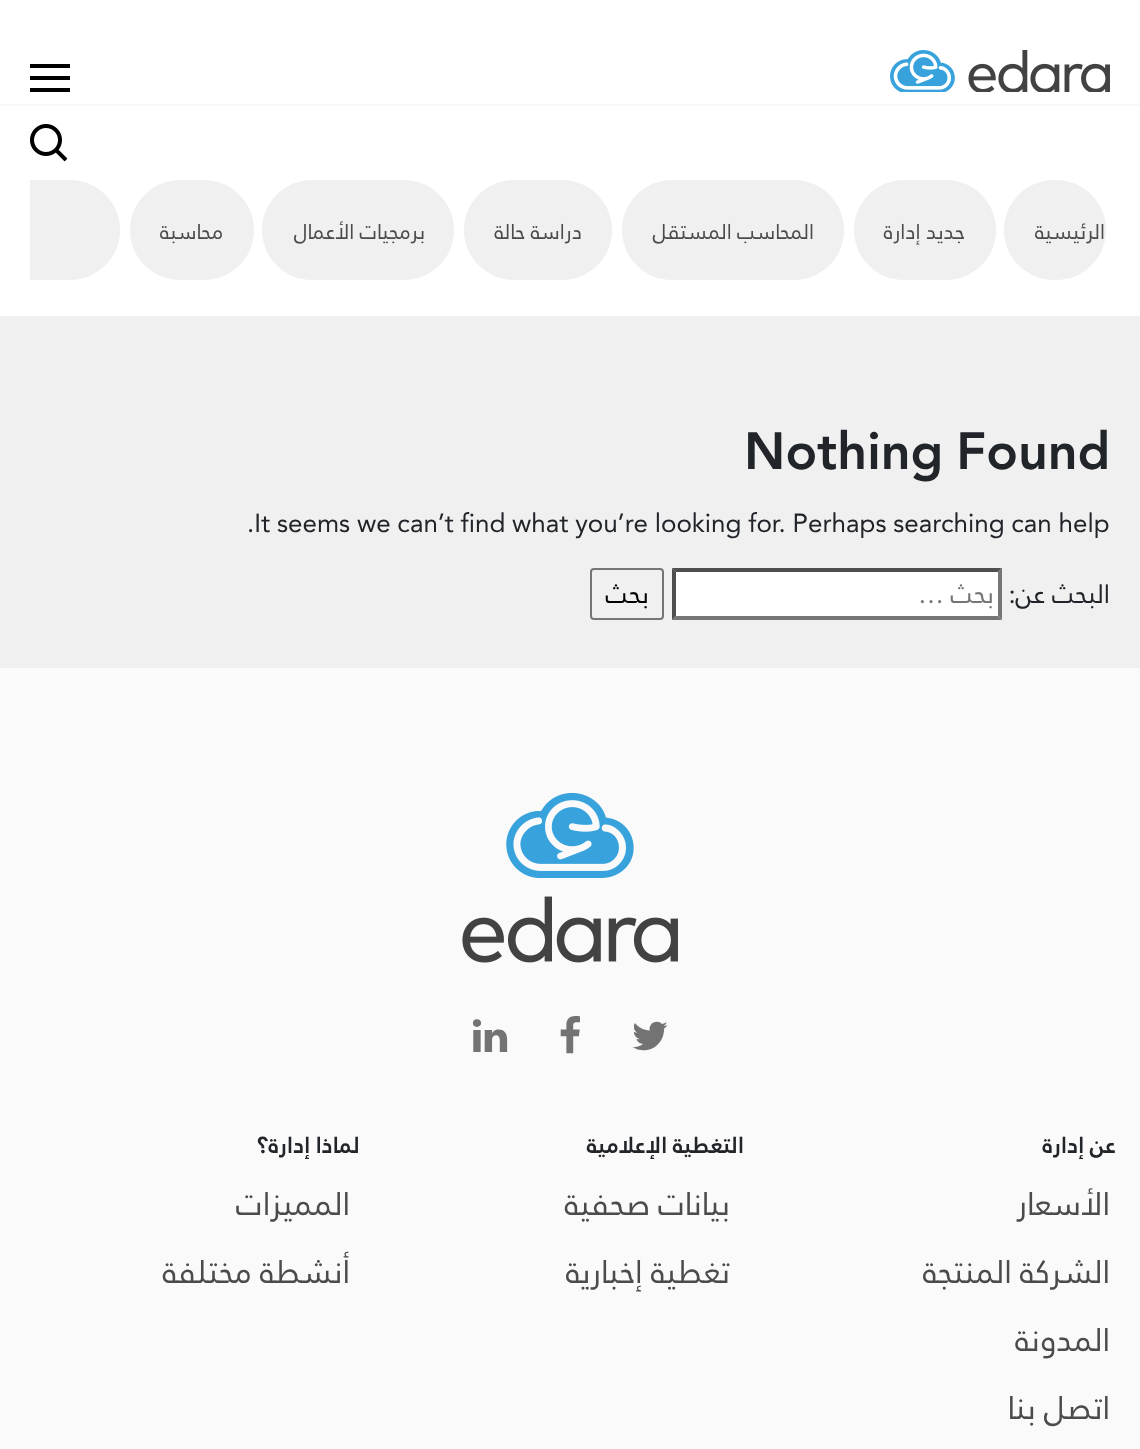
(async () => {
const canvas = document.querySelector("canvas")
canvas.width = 1140
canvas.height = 1449
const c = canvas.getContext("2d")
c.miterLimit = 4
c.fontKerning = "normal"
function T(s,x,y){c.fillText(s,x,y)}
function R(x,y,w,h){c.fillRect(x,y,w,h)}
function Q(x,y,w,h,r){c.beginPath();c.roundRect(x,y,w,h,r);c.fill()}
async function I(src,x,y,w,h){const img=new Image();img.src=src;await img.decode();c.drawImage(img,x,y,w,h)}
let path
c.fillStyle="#f0f0f0"
R(0,0,1140,1449)
c.fillStyle="#fff"
R(0,0,1140,316)
await I("1.png",890,50,220,42)
c.fillStyle="#000"
R(30,76,40,4)
R(30,64,40,4)
R(30,88,40,4)
c.fillStyle="#f9f9f9"
R(0,104,1140,2)
await I("2.png",30,124,38,38)
c.fillStyle="#f0f0f0"
Q(1004,180,102,100,50)
c.direction="rtl"
c.font="21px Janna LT"
c.fillStyle="#4b4b4b"
T("الرئيسية",1105,239)
c.fillStyle="#f0f0f0"
Q(854,180,142,100,50)
c.fillStyle="#4b4b4b"
T("جديد إدارة",965,239)
c.fillStyle="#f0f0f0"
Q(622,180,222,100,50)
c.fillStyle="#4b4b4b"
T("المحاسب المستقل",814,239)
c.fillStyle="#f0f0f0"
Q(464,180,148,100,50)
c.fillStyle="#4b4b4b"
T("دراسة حالة",582,239)
c.fillStyle="#f0f0f0"
Q(262,180,192,100,50)
c.fillStyle="#4b4b4b"
T("برمجيات الأعمال",425,239)
c.fillStyle="#f0f0f0"
Q(130,180,124,100,50)
c.fillStyle="#4b4b4b"
T("محاسبة",223,239)
c.fillStyle="#f0f0f0"
c.beginPath()
c.roundRect(30,180,90,100,[0,50,50,0])
c.fill()
c.direction="ltr"
c.font="bold 52px Janna LT"
c.fillStyle="#212529"
T("Nothing Found",744,469)
c.font="26px Janna LT"
T(".It seems we can’t find what you’re looking for. Perhaps searching can help",247,532)
c.direction="rtl"
T("البحث عن:",1110,603)
c.fillStyle="#fff"
R(672,568,330,52)
c.fillStyle="#4f4f4f"
path = new Path2D("M672 568h330l-4 4h-322z")
c.fill(path)
c.fillStyle="#767676"
path = new Path2D("M1002 568v52l-4-4v-44z")
c.fill(path)
path = new Path2D("M1002 620h-330l4-4h322z")
c.fill(path)
c.fillStyle="#4f4f4f"
path = new Path2D("M672 620v-52l4 4v44z")
c.fill(path)
c.fillStyle="#757575"
T("بحث …",994,603)
c.beginPath()
c.roundRect(591,569,72,50,3)
c.strokeStyle="#767676"
c.lineWidth=2
c.stroke()
c.fillStyle="#000"
T("بحث",649,603)
c.fillStyle="#fafafa"
R(0,668,1140,781)
await I("3.png",462,792,216,171)
await I("4.png",632,1021,36,30)
await I("5.png",560,1016,20,38)
await I("6.png",473,1019,35,33)
c.letterSpacing="0.9px"
c.wordSpacing="-1px"
c.font="bold 22.75px Janna LT"
c.fillStyle="#212529"
T("عن إدارة",1116,1153)
c.letterSpacing="0px"
c.wordSpacing="0px"
c.font="32px Janna LT"
c.fillStyle="#4b4b4b"
T("الأسعار",1110,1215)
T("الشركة المنتجة",1110,1283)
T("المدونة",1110,1351)
T("اتصل بنا",1110,1419)
c.letterSpacing="0.9px"
c.wordSpacing="-1px"
c.font="bold 22.75px Janna LT"
c.fillStyle="#212529"
T("التغطية الإعلامية",744,1153)
c.letterSpacing="0px"
c.wordSpacing="0px"
c.font="32px Janna LT"
c.fillStyle="#4b4b4b"
T("بيانات صحفية",730,1215)
T("تغطية إخبارية",730,1283)
c.letterSpacing="0.9px"
c.wordSpacing="-1px"
c.font="bold 22.75px Janna LT"
c.fillStyle="#212529"
T("لماذا إدارة؟",360,1153)
c.letterSpacing="0px"
c.wordSpacing="0px"
c.font="32px Janna LT"
c.fillStyle="#4b4b4b"
T("المميزات",350,1215)
T("أنشطة مختلفة",350,1283)
})()
